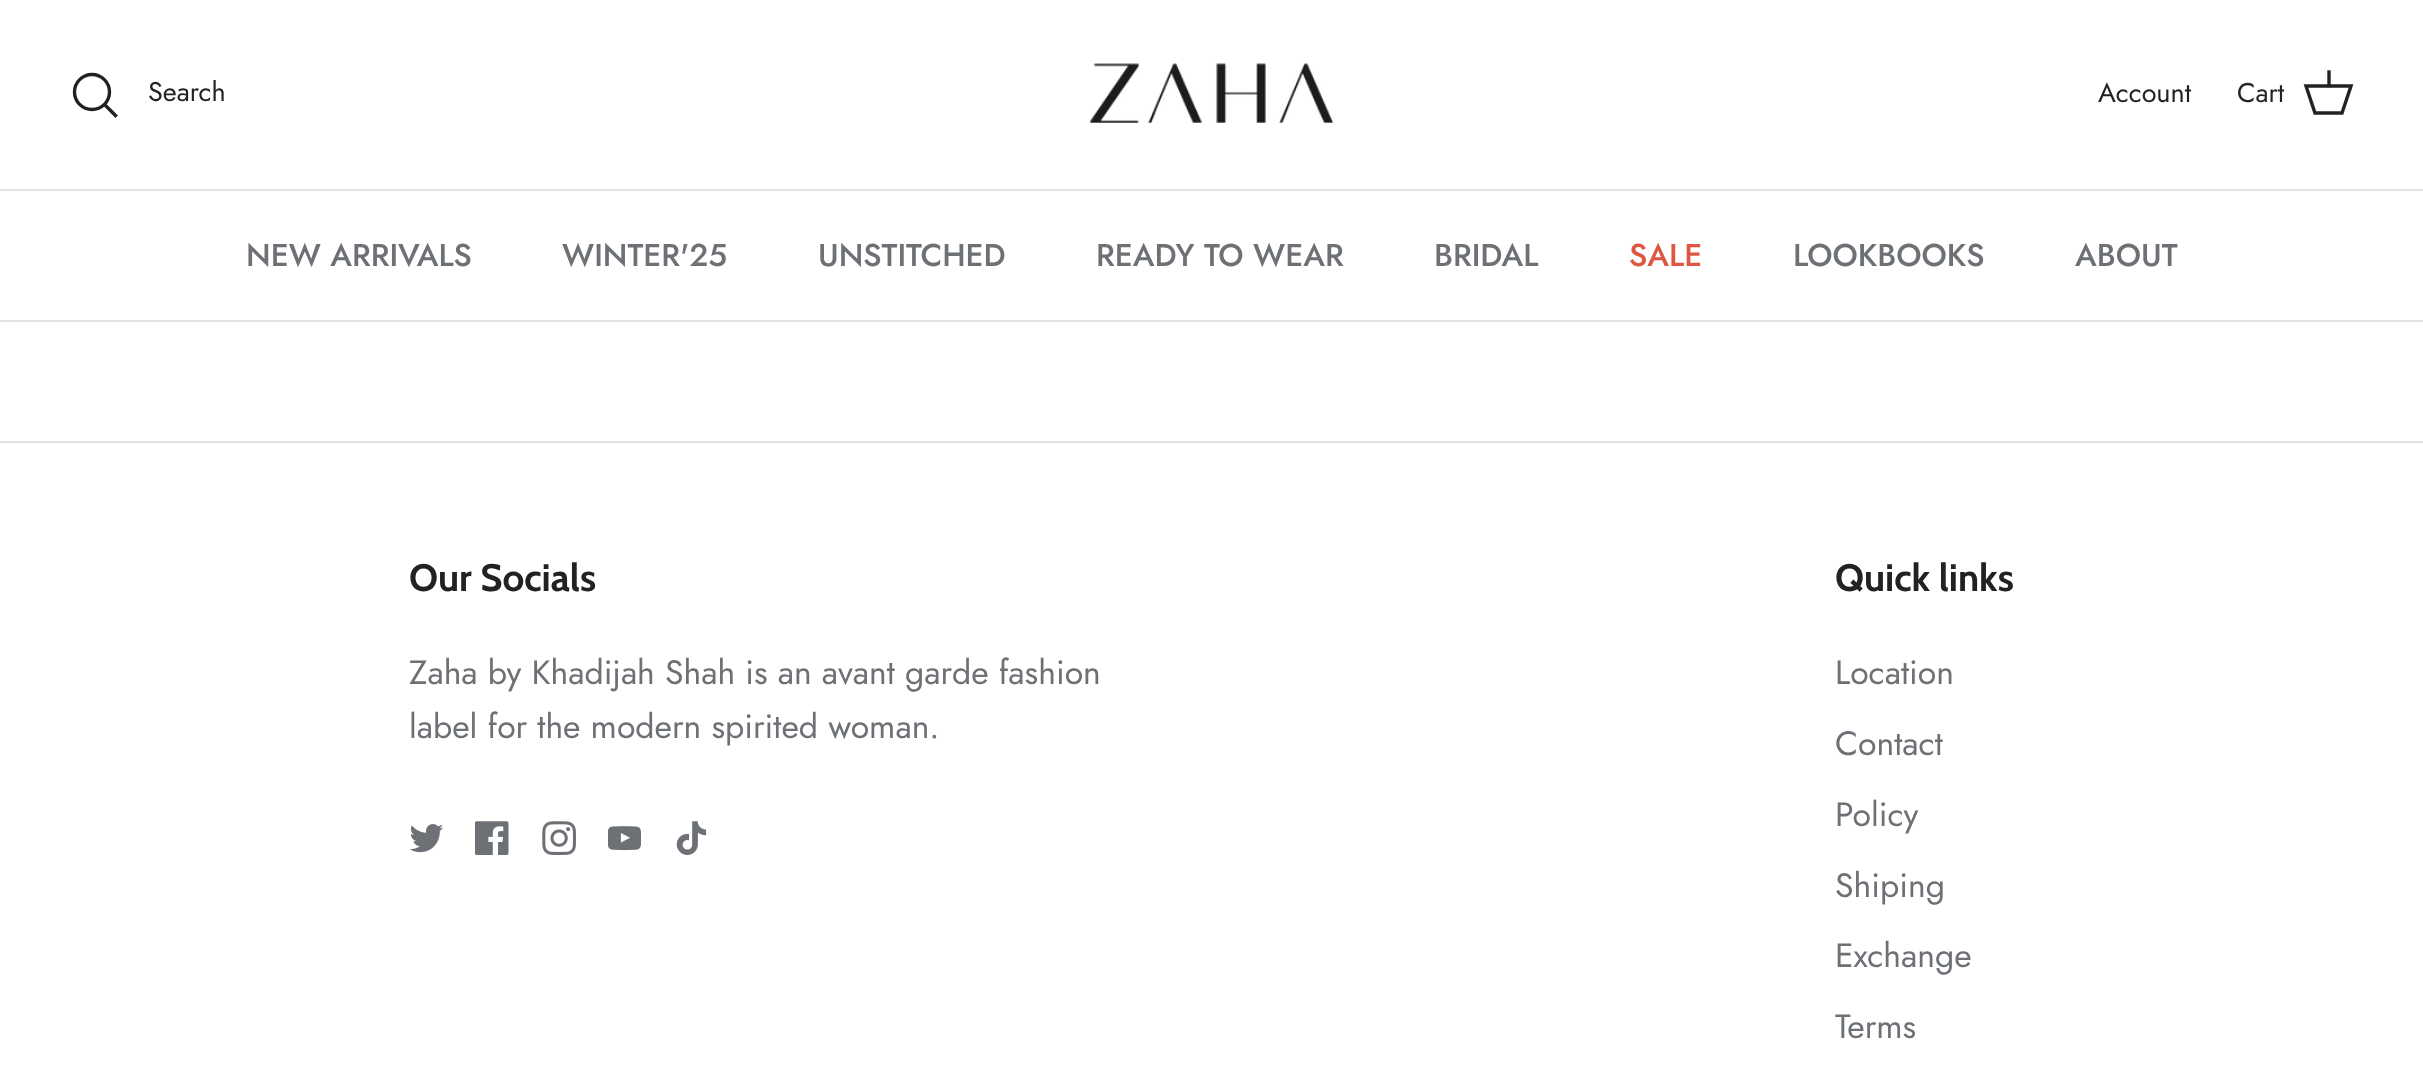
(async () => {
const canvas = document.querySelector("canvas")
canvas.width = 2423
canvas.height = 1066
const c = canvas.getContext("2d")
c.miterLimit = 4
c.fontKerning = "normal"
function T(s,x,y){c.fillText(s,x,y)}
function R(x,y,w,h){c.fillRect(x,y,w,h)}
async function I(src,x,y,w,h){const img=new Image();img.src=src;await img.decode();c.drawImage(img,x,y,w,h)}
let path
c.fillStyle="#fff"
R(0,0,2423,1066)
c.fillStyle="#e2e2e2"
R(0,189,2423,2)
c.beginPath()
c.arc(92,92,17.5,0,7)
c.strokeStyle="#202223"
c.lineWidth=3.4
c.stroke()
c.font="27px Jost"
c.fillStyle="#202223"
T("Search",148,101)
path = new Path2D("M105.5 105.5l10 10")
c.lineCap="square"
c.stroke(path)
await I("1.png",1090,63,244,60)
T("Account",2098,102)
T("Cart",2237,102)
path = new Path2D("M2306 86h45l-9 27h-27z")
c.lineCap="butt"
c.stroke(path)
path = new Path2D("M2329 85.5v-13.5")
c.lineCap="square"
c.stroke(path)
c.fillStyle="#e2e2e2"
R(0,320,2423,2)
c.font="500 31.5px Jost"
c.fillStyle="#6d7175"
T("NEW ARRIVALS",246,266)
T("WINTER'25",562,266)
T("UNSTITCHED",818,266)
T("READY TO WEAR",1096,266)
T("BRIDAL",1434,266)
c.fillStyle="#df5641"
T("SALE",1629,266)
c.fillStyle="#6d7175"
T("LOOKBOOKS",1793,266)
T("ABOUT",2075,266)
c.fillStyle="#e0e0e0"
R(0,441,2423,2)
c.font="bold 38.25px Cabin"
c.fillStyle="#202223"
T("Our Socials",409,591)
c.font="33.75px Jost"
c.fillStyle="#6d7175"
T("Zaha by Khadijah Shah is an avant garde fashion",409,684)
T("label for the modern spirited woman.",409,738)
await I("2.png",410,824,33,29)
await I("3.png",475,821,34,34)
await I("4.png",542,821,34,34)
await I("5.png",608,826,33,25)
await I("6.png",676,821,31,34)
c.font="bold 38.25px Cabin"
c.fillStyle="#202223"
T("Quick links",1835,591)
c.font="33.75px Jost"
c.fillStyle="#6d7175"
T("Location",1835,684)
T("Contact",1835,755)
T("Policy",1835,826)
T("Shiping",1835,897)
T("Exchange",1835,967)
T("Terms",1835,1038)
})()
